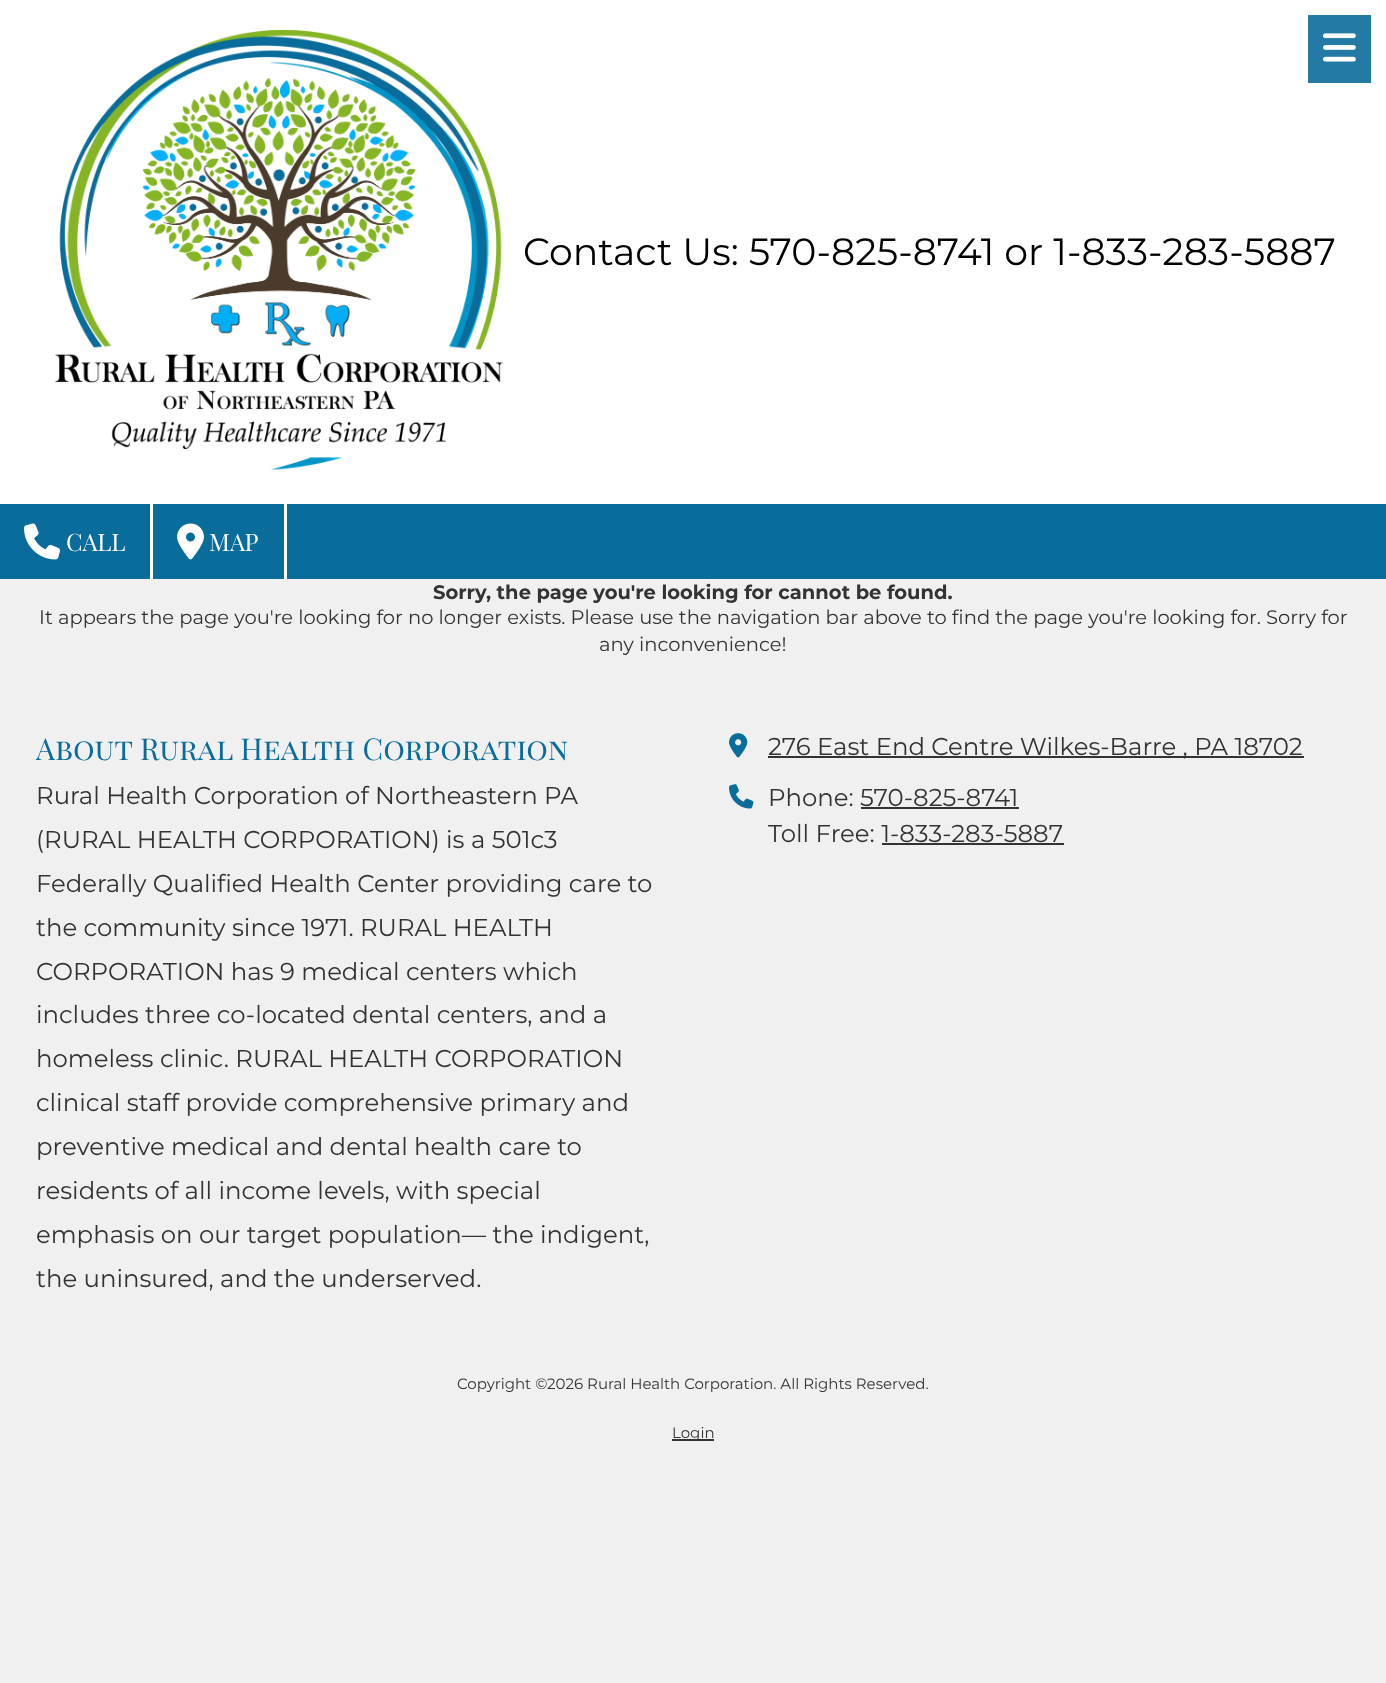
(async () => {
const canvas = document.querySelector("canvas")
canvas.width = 1386
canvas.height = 1683
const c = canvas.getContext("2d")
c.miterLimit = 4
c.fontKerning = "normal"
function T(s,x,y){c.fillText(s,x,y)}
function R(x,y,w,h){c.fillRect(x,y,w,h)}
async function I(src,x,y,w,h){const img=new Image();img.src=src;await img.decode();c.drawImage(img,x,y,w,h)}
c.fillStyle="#f0f0f0"
R(0,0,1386,1683)
c.fillStyle="#fff"
R(0,0,1386,504)
c.fillStyle="#237ba5"
R(1308,15,63,68)
await I("1.png",1323,33,33,29)
await I("2.png",55,30,448,440)
c.font="37.9px Montserrat"
c.fillStyle="#000"
T("Contact Us: 570-825-8741 or 1-833-283-5887",523,265)
c.fillStyle="#0a6c9b"
R(0,504,1386,75)
c.fillStyle="#fff"
R(150,504,3,75)
await I("3.png",24,523,36,37)
c.font="24px Playfair Display SC"
T("CALL",66,551)
R(284,504,3,75)
await I("4.png",177,523,27,37)
T("MAP",209,551)
c.font="bold 19.5px Montserrat"
c.fillStyle="#333"
T("Sorry, the page you're looking for cannot be found.",433,599)
c.font="19.5px Montserrat"
T("It appears the page you're looking for no longer exists. Please use the navigation bar above to find the page you're looking for. Sorry for",39,624)
T("any inconvenience!",599,651)
c.font="30px Playfair Display SC"
c.fillStyle="#0a6c9b"
T("About Rural Health Corporation",36,760)
c.font="24.4px Montserrat"
c.fillStyle="#333"
T("Rural Health Corporation of Northeastern PA",36,804)
T("(RURAL HEALTH CORPORATION) is a 501c3",36,848)
T("Federally Qualified Health Center providing care to",36,892)
T("the community since 1971. RURAL HEALTH",36,936)
T("CORPORATION has 9 medical centers which",36,980)
T("includes three co-located dental centers, and a",36,1023)
T("homeless clinic. RURAL HEALTH CORPORATION",36,1067)
T("clinical staff provide comprehensive primary and",36,1111)
T("preventive medical and dental health care to",36,1155)
T("residents of all income levels, with special",36,1199)
T("emphasis on our target population— the indigent,",36,1243)
T("the uninsured, and the underserved.",36,1287)
await I("5.png",729,733,19,25)
R(768,756,536,2)
T("276 East End Centre Wilkes-Barre , PA 18702",768,755)
await I("6.png",729,784,25,25)
T("Phone: 570-825-8741",768,806)
R(861,807,158,2)
T("Toll Free: 1-833-283-5887",768,842)
R(882,843,182,2)
c.font="15px Montserrat"
T("Copyright ©2026 Rural Health Corporation. All Rights Reserved.",457,1389)
R(672,1439,42,2)
T("Login",672,1438)
})()
